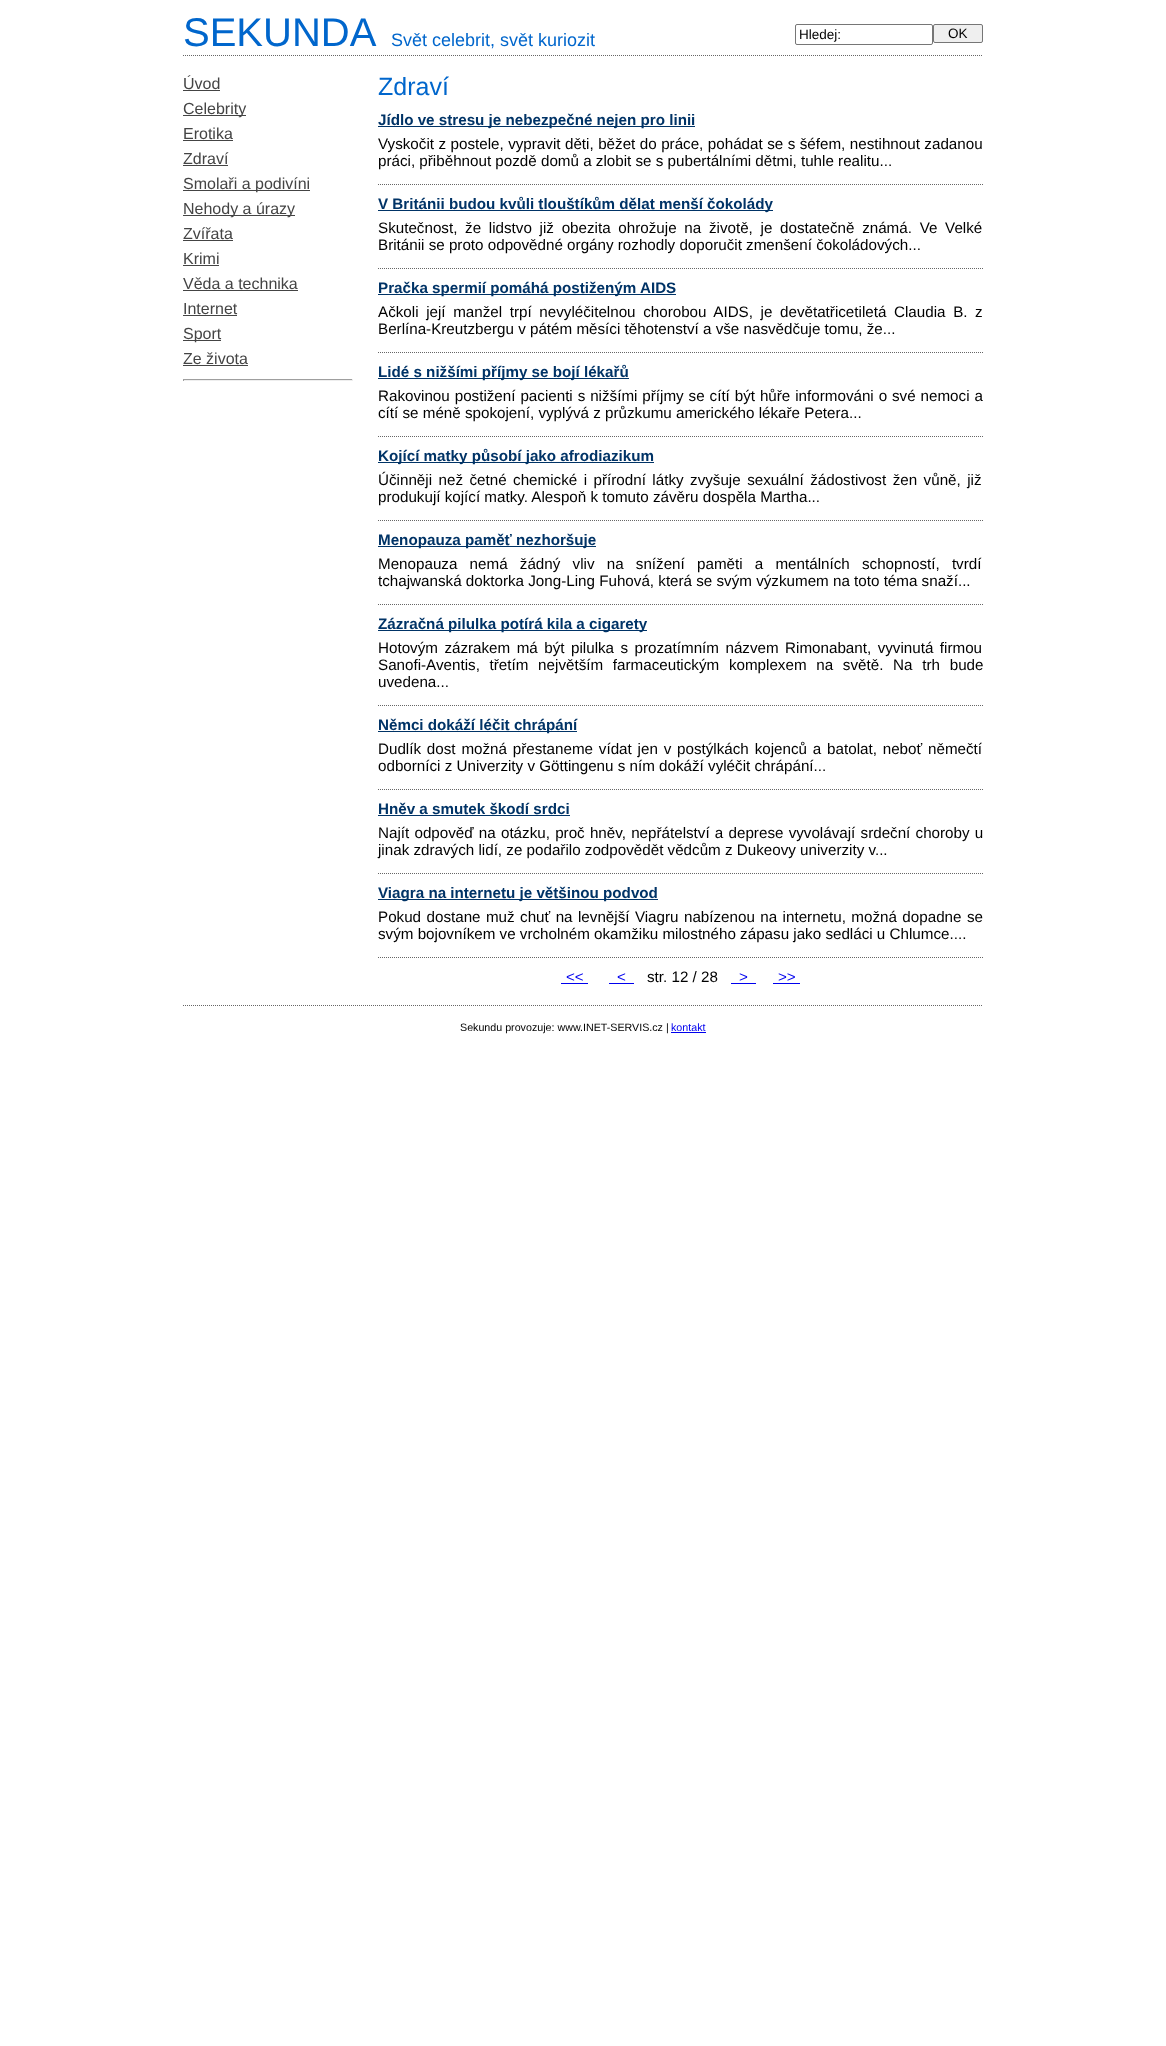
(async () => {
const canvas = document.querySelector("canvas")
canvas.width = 1166
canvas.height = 2046
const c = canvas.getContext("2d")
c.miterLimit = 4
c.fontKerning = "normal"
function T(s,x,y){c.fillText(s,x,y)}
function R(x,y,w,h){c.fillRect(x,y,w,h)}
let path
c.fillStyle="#fff"
R(0,0,1166,2046)
path = new Path2D("M183 55.5h800")
c.strokeStyle="#666"
c.setLineDash([1,1])
c.stroke(path)
c.font="40px Liberation Sans"
c.fillStyle="#06c"
T("SEKUNDA",183,46)
c.font="18px Liberation Sans"
T("Svět celebrit, svět kuriozit",391,46)
c.beginPath()
c.roundRect(795.5,24.5,137,20,1.5)
c.strokeStyle="#767676"
c.setLineDash([])
c.stroke()
c.font="13.5px Liberation Sans"
c.fillStyle="#000"
T("Hledej:",799,39)
c.fillStyle="#efefef"
c.beginPath()
c.roundRect(933.5,24.5,49,18,1.5)
c.fill()
c.stroke()
c.fillStyle="#000"
T("OK",948,38)
c.font="16px Liberation Sans"
c.fillStyle="#444"
T("Úvod",183,89)
R(183,90,37,1)
R(183,115,63,1)
T("Celebrity",183,114)
T("Erotika",183,139)
R(183,140,50,1)
T("Zdraví",183,164)
R(183,165,45,1)
R(183,190,127,1)
T("Smolaři a podivíni",183,189)
R(183,215,112,1)
T("Nehody a úrazy",183,214)
T("Zvířata",183,239)
R(183,240,50,1)
T("Krimi",183,264)
R(183,265,36,1)
T("Věda a technika",183,289)
R(183,290,115,1)
T("Internet",183,314)
R(183,315,54,1)
R(183,340,38,1)
T("Sport",183,339)
T("Ze života",183,364)
R(183,365,65,1)
c.fillStyle="#9f9f9f"
R(183,379,170,1)
c.fillStyle="#eee"
R(352,379,1,2)
R(183,380,170,1)
c.fillStyle="#9f9f9f"
R(183,379,1,2)
c.font="25px Liberation Sans"
c.fillStyle="#06c"
T("Zdraví",378,95)
c.fillStyle="#036"
R(378,126,317,1)
c.font="bold 15.2px Liberation Sans"
T("Jídlo ve stresu je nebezpečné nejen pro linii",378,125)
path = new Path2D("M378 184.5h605")
c.strokeStyle="#666"
c.setLineDash([1,1])
c.stroke(path)
c.wordSpacing="0.25px"
c.font="15.2px Liberation Sans"
c.fillStyle="#000"
T("Vyskočit z postele, vypravit děti, běžet do práce, pohádat se s šéfem, nestihnout zadanou",378,149)
c.wordSpacing="0px"
T("práci, přiběhnout pozdě domů a zlobit se s pubertálními dětmi, tuhle realitu...",378,166)
c.fillStyle="#036"
R(378,210,395,1)
c.font="bold 15.2px Liberation Sans"
T("V Británii budou kvůli tlouštíkům dělat menší čokolády",378,209)
path = new Path2D("M378 268.5h605")
c.stroke(path)
c.wordSpacing="3.5px"
c.font="15.2px Liberation Sans"
c.fillStyle="#000"
T("Skutečnost, že lidstvo již obezita ohrožuje na životě, je dostatečně známá. Ve Velké",378,233)
c.wordSpacing="0px"
T("Británii se proto odpovědné orgány rozhodly doporučit zmenšení čokoládových...",378,250)
c.fillStyle="#036"
R(378,294,298,1)
c.font="bold 15.2px Liberation Sans"
T("Pračka spermií pomáhá postiženým AIDS",378,293)
path = new Path2D("M378 352.5h605")
c.stroke(path)
c.wordSpacing="3.4px"
c.font="15.2px Liberation Sans"
c.fillStyle="#000"
T("Ačkoli její manžel trpí nevyléčitelnou chorobou AIDS, je devětatřicetiletá Claudia B. z",378,317)
c.wordSpacing="0px"
T("Berlína-Kreutzbergu v pátém měsíci těhotenství a vše nasvědčuje tomu, že...",378,334)
c.fillStyle="#036"
R(378,378,251,1)
c.font="bold 15.2px Liberation Sans"
T("Lidé s nižšími příjmy se bojí lékařů",378,377)
path = new Path2D("M378 436.5h605")
c.stroke(path)
c.wordSpacing="0.7px"
c.font="15.2px Liberation Sans"
c.fillStyle="#000"
T("Rakovinou postižení pacienti s nižšími příjmy se cítí být hůře informováni o své nemoci a",378,401)
c.wordSpacing="0px"
T("cítí se méně spokojení, vyplývá z průzkumu amerického lékaře Petera...",378,418)
c.fillStyle="#036"
R(378,462,276,1)
c.font="bold 15.2px Liberation Sans"
T("Kojící matky působí jako afrodiazikum",378,461)
path = new Path2D("M378 520.5h605")
c.stroke(path)
c.wordSpacing="2.25px"
c.font="15.2px Liberation Sans"
c.fillStyle="#000"
T("Účinněji než četné chemické i přírodní látky zvyšuje sexuální žádostivost žen vůně, již",378,485)
c.wordSpacing="0px"
T("produkují kojící matky. Alespoň k tomuto závěru dospěla Martha...",378,502)
c.fillStyle="#036"
R(378,546,218,1)
c.font="bold 15.2px Liberation Sans"
T("Menopauza paměť nezhoršuje",378,545)
path = new Path2D("M378 604.5h605")
c.stroke(path)
c.wordSpacing="8px"
c.font="15.2px Liberation Sans"
c.fillStyle="#000"
T("Menopauza nemá žádný vliv na snížení paměti a mentálních schopností, tvrdí",378,569)
c.wordSpacing="0px"
T("tchajwanská doktorka Jong-Ling Fuhová, která se svým výzkumem na toto téma snaží...",378,586)
c.fillStyle="#036"
R(378,630,269,1)
c.font="bold 15.2px Liberation Sans"
T("Zázračná pilulka potírá kila a cigarety",378,629)
path = new Path2D("M378 705.5h605")
c.stroke(path)
c.wordSpacing="2.25px"
c.font="15.2px Liberation Sans"
c.fillStyle="#000"
T("Hotovým zázrakem má být pilulka s prozatímním názvem Rimonabant, vyvinutá firmou",378,653)
c.wordSpacing="5.5px"
T("Sanofi-Aventis, třetím největším farmaceutickým komplexem na světě. Na trh bude",378,670)
c.wordSpacing="0px"
T("uvedena...",378,687)
c.fillStyle="#036"
R(378,731,199,1)
c.font="bold 15.2px Liberation Sans"
T("Němci dokáží léčit chrápání",378,730)
path = new Path2D("M378 789.5h605")
c.stroke(path)
c.wordSpacing="1.6px"
c.font="15.2px Liberation Sans"
c.fillStyle="#000"
T("Dudlík dost možná přestaneme vídat jen v postýlkách kojenců a batolat, neboť němečtí",378,754)
c.wordSpacing="0px"
T("odborníci z Univerzity v Göttingenu s ním dokáží vyléčit chrápání...",378,771)
c.font="bold 15.2px Liberation Sans"
c.fillStyle="#036"
T("Hněv a smutek škodí srdci",378,814)
R(378,815,192,1)
path = new Path2D("M378 873.5h605")
c.stroke(path)
c.wordSpacing="1px"
c.font="15.2px Liberation Sans"
c.fillStyle="#000"
T("Najít odpověď na otázku, proč hněv, nepřátelství a deprese vyvolávají srdeční choroby u",378,838)
c.wordSpacing="0px"
T("jinak zdravých lidí, ze podařilo zodpovědět vědcům z Dukeovy univerzity v...",378,855)
c.fillStyle="#036"
R(378,899,280,1)
c.font="bold 15.2px Liberation Sans"
T("Viagra na internetu je většinou podvod",378,898)
path = new Path2D("M378 957.5h605")
c.stroke(path)
c.wordSpacing="1.2px"
c.font="15.2px Liberation Sans"
c.fillStyle="#000"
T("Pokud dostane muž chuť na levnější Viagru nabízenou na internetu, možná dopadne se",378,922)
c.wordSpacing="0px"
T("svým bojovníkem ve vrcholném okamžiku milostného zápasu jako sedláci u Chlumce....",378,939)
c.fillStyle="#00e"
T("<<",566,982)
R(561,983,27,1)
T("<",617,982)
R(609,983,25,1)
c.fillStyle="#000"
T("str. 12 / 28",647,982)
c.fillStyle="#00e"
T(">",739,982)
R(731,983,25,1)
T(">>",778,982)
R(773,983,27,1)
path = new Path2D("M183 1005.5h800")
c.stroke(path)
c.font="10.7px Liberation Sans"
c.fillStyle="#000"
T("Sekundu provozuje: www.INET-SERVIS.cz |",460,1031)
c.fillStyle="#00e"
T("kontakt",671,1031)
R(671,1032,35,1)
})()
